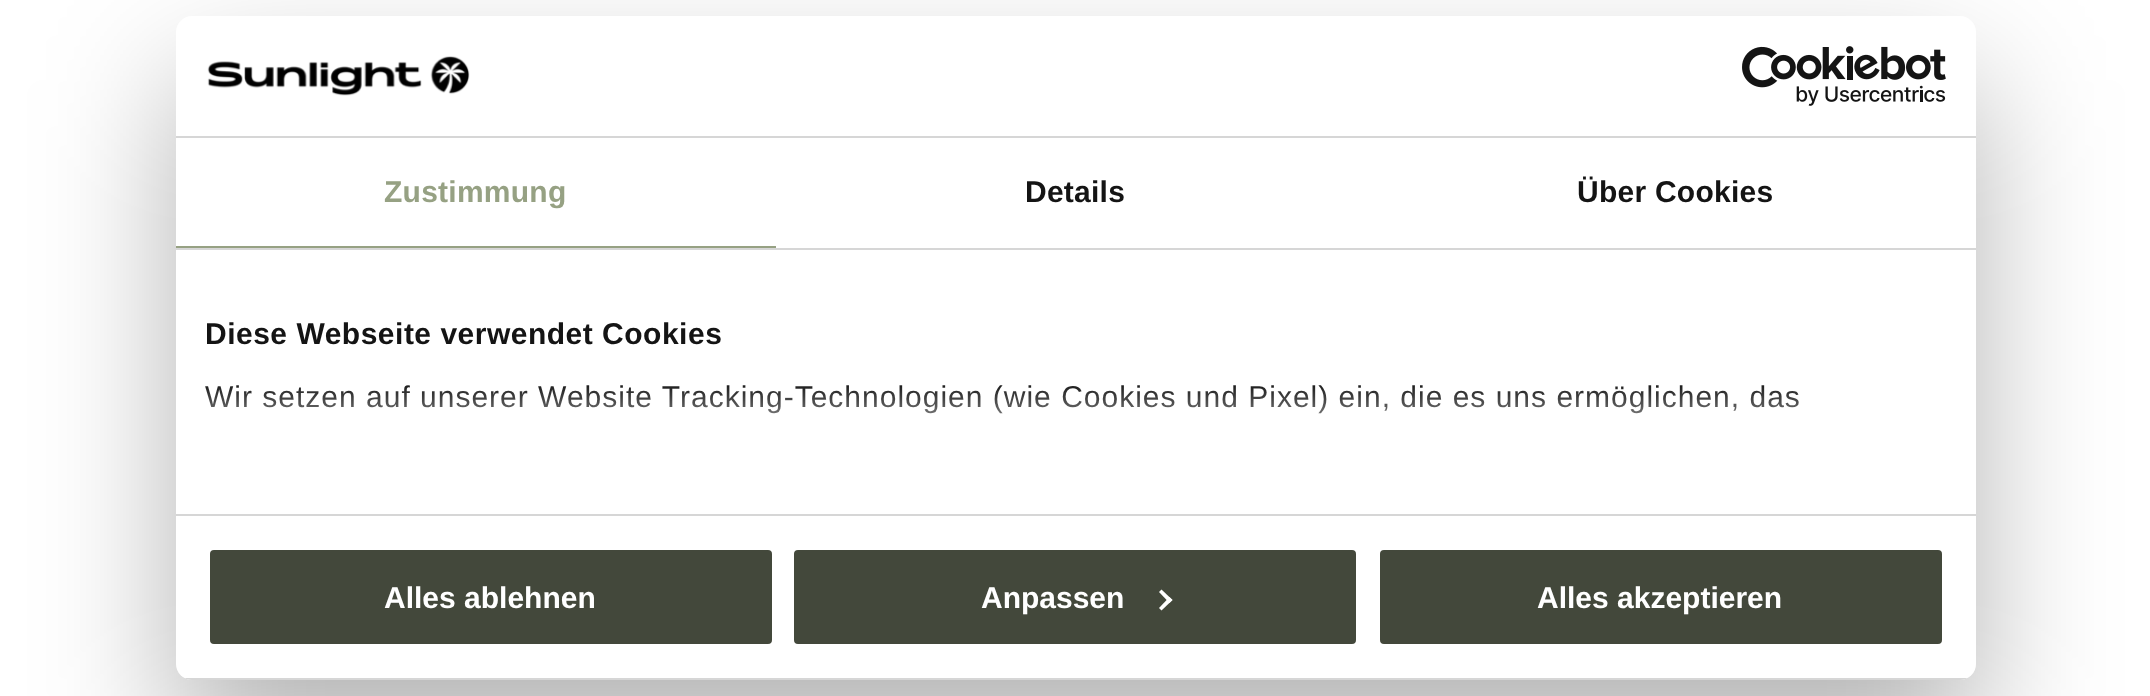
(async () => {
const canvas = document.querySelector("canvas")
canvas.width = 2150
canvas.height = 696
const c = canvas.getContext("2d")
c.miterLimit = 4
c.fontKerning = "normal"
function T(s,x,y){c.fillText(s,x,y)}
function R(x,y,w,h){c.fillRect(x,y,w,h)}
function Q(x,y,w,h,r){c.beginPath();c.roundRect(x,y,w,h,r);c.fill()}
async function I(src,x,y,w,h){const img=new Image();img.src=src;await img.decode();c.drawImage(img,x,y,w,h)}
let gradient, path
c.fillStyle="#fff"
R(0,0,2150,696)
c.fillStyle="#0000004d"
c.filter="blur(68px)"
c.beginPath()
c.roundRect(176,80,1800,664,16)
c.fill()
c.filter="none"
c.fillStyle="#fff"
Q(176,16,1800,664,16)
c.fillStyle="#d6d6d6"
R(176,136,1800,2)
await I("1.png",207,56,263,40)
await I("2.png",1742,46,204,60)
R(176,248,1800,2)
c.fillStyle="#96a183"
R(176,246,600,2)
c.letterSpacing="0.25px"
c.font="bold 30px Liberation Sans"
T("Zustimmung",384,202)
c.fillStyle="#141414"
T("Details",1025,202)
T("Über Cookies",1577,202)
c.fillStyle="#d6d6d6"
R(176,514,1800,2)
c.letterSpacing="0.5px"
c.fillStyle="#141414"
T("Diese Webseite verwendet Cookies",205,344)
c.letterSpacing="1px"
c.font="30px Liberation Sans"
T("Wir setzen auf unserer Website Tracking-Technologien (wie Cookies und Pixel) ein, die es uns ermöglichen, das",205,407)
gradient = c.createLinearGradient(1063,514,1063,382)
gradient.addColorStop(0,"#fff")
gradient.addColorStop(.5,"#ffffffcc")
gradient.addColorStop(1,"#ffffff00")
c.fillStyle = gradient
R(205,385,1594,29)
c.save()
c.beginPath()
c.roundRect(176,16,1800,664,16)
c.clip()
c.fillStyle="#d6d6d6"
R(176,678,1800,2)
c.restore()
c.fillStyle="#43483b"
c.beginPath()
c.roundRect(208,548,566,98,6)
c.fill()
c.strokeStyle="#fff"
c.lineWidth=4
c.stroke()
c.letterSpacing="0px"
c.font="bold 30px Liberation Sans"
c.fillStyle="#fff"
T("Alles ablehnen",384,608)
c.fillStyle="#43483b"
c.beginPath()
c.roundRect(792,548,566,98,6)
c.fill()
c.stroke()
c.fillStyle="#fff"
T("Anpassen",981,608)
path = new Path2D("M1161.5 589.5l11 10.5l-3 3l-10.5-11z")
c.fill(path)
path = new Path2D("M1169.5 597l3 3l-11 10.5l-2.5-2.5z")
c.fill(path)
c.fillStyle="#43483b"
c.beginPath()
c.roundRect(1378,548,566,98,6)
c.fill()
c.stroke()
c.fillStyle="#fff"
T("Alles akzeptieren",1537,608)
})()
